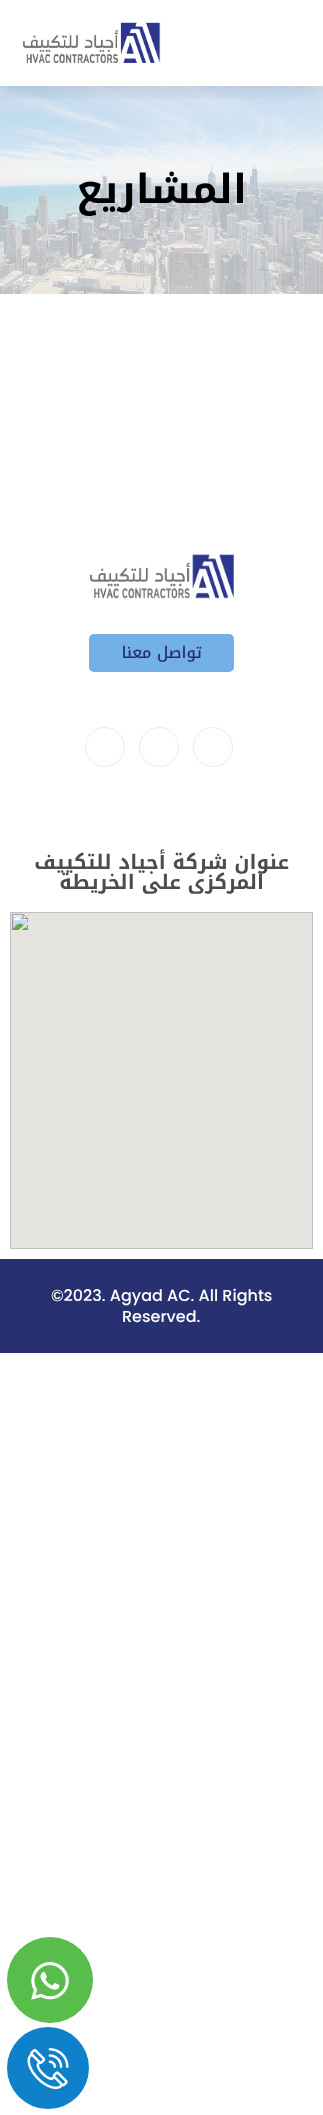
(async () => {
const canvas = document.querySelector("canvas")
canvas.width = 323
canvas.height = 2115
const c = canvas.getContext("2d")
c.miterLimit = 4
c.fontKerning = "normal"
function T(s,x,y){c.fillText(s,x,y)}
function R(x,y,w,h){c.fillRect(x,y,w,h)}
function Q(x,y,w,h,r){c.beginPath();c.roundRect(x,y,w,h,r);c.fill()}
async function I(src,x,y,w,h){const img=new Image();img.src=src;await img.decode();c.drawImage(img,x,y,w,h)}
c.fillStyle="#fff"
R(0,0,323,2115)
await I("2.png",0,86,323,208)
c.save()
c.beginPath()
c.rect(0,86,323,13)
c.clip()
c.fillStyle="#00000026"
c.filter="blur(12px)"
c.beginPath()
c.rect(0,0,323,86)
c.fill()
c.filter="none"
c.restore()
await I("1.png",23,22,138,41)
c.direction="rtl"
c.font="bold 40px Noto Kufi Arabic"
c.fillStyle="#000"
T("المشاريع",247,203)
await I("3.png",90,554,144,45)
c.fillStyle="#73b0e6"
Q(89,634,145,38,5)
c.font="500 16px Noto Kufi Arabic"
c.fillStyle="#2a287e"
T("تواصل معنا",202,658)
c.beginPath()
c.arc(213,747,19.5,0,7)
c.strokeStyle="#eaebf1"
c.stroke()
c.beginPath()
c.arc(159,747,19.5,0,7)
c.stroke()
c.beginPath()
c.arc(105,747,19.5,0,7)
c.stroke()
c.font="bold 20px Noto Kufi Arabic"
c.fillStyle="#4c4c4c"
T("عنوان شركة أجياد للتكييف",289,869)
T("المركزى على الخريطة",264,889)
await I("4.png",10,912,303,337)
c.fillStyle="#273171"
R(0,1259,323,94)
c.direction="ltr"
c.font="500 16px Poppins"
c.fillStyle="#fff"
T("©2023. Agyad AC. All Rights",51,1301)
T("Reserved.",122,1322)
c.fillStyle="#59bd4b"
c.beginPath()
c.arc(50,1980,43,0,7)
c.fill()
await I("5.png",31,1962,38,38)
c.fillStyle="#0f81cb"
c.beginPath()
c.arc(48,2068,41,0,7)
c.fill()
await I("6.png",27,2048,42,42)
})()
